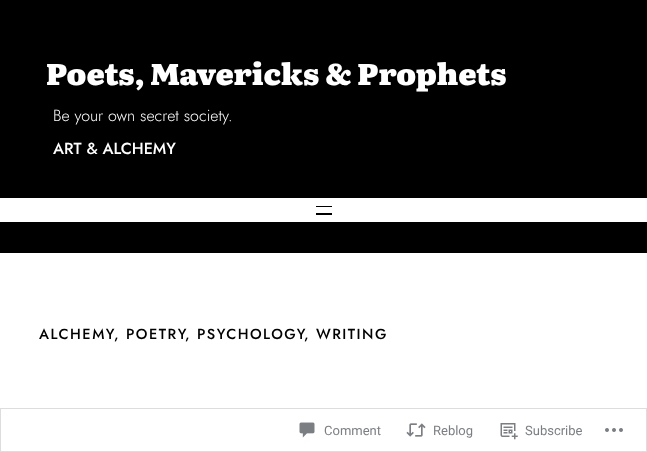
(async () => {
const canvas = document.querySelector("canvas")
canvas.width = 647
canvas.height = 452
const c = canvas.getContext("2d")
c.miterLimit = 4
c.fontKerning = "normal"
function T(s,x,y){c.fillText(s,x,y)}
function R(x,y,w,h){c.fillRect(x,y,w,h)}
async function I(src,x,y,w,h){const img=new Image();img.src=src;await img.decode();c.drawImage(img,x,y,w,h)}
c.fillStyle="#fff"
R(0,0,647,452)
c.fillStyle="#000"
R(0,0,647,253)
c.font="900 30px Literata"
c.fillStyle="#fff"
T("Poets, Mavericks & Prophets",46,85)
c.font="300 16px Jost"
T("Be your own secret society.",53,121)
c.font="500 16px Jost"
T("ART & ALCHEMY",53,154)
R(0,198,647,24)
c.fillStyle="#000"
R(316,206,16,1)
R(316,213,16,2)
c.letterSpacing="1.5px"
c.font="500 14.5px Jost"
T("ALCHEMY",39,339)
T(", POETRY",114,339)
T(", PSYCHOLOGY",185,339)
T(", WRITING",304,339)
c.strokeStyle="#dcdcdefa"
c.strokeRect(.5,408.5,646,43)
await I("1.png",299,422,16,16)
c.letterSpacing="0px"
c.font="13px Roboto"
c.fillStyle="#7b7f85"
T("Comment",324,435)
await I("2.png",406,423,20,14)
T("Reblog",433,435)
await I("3.png",500,423,18,17)
T("Subscribe",525,435)
await I("4.png",605,428,18,4)
})()
